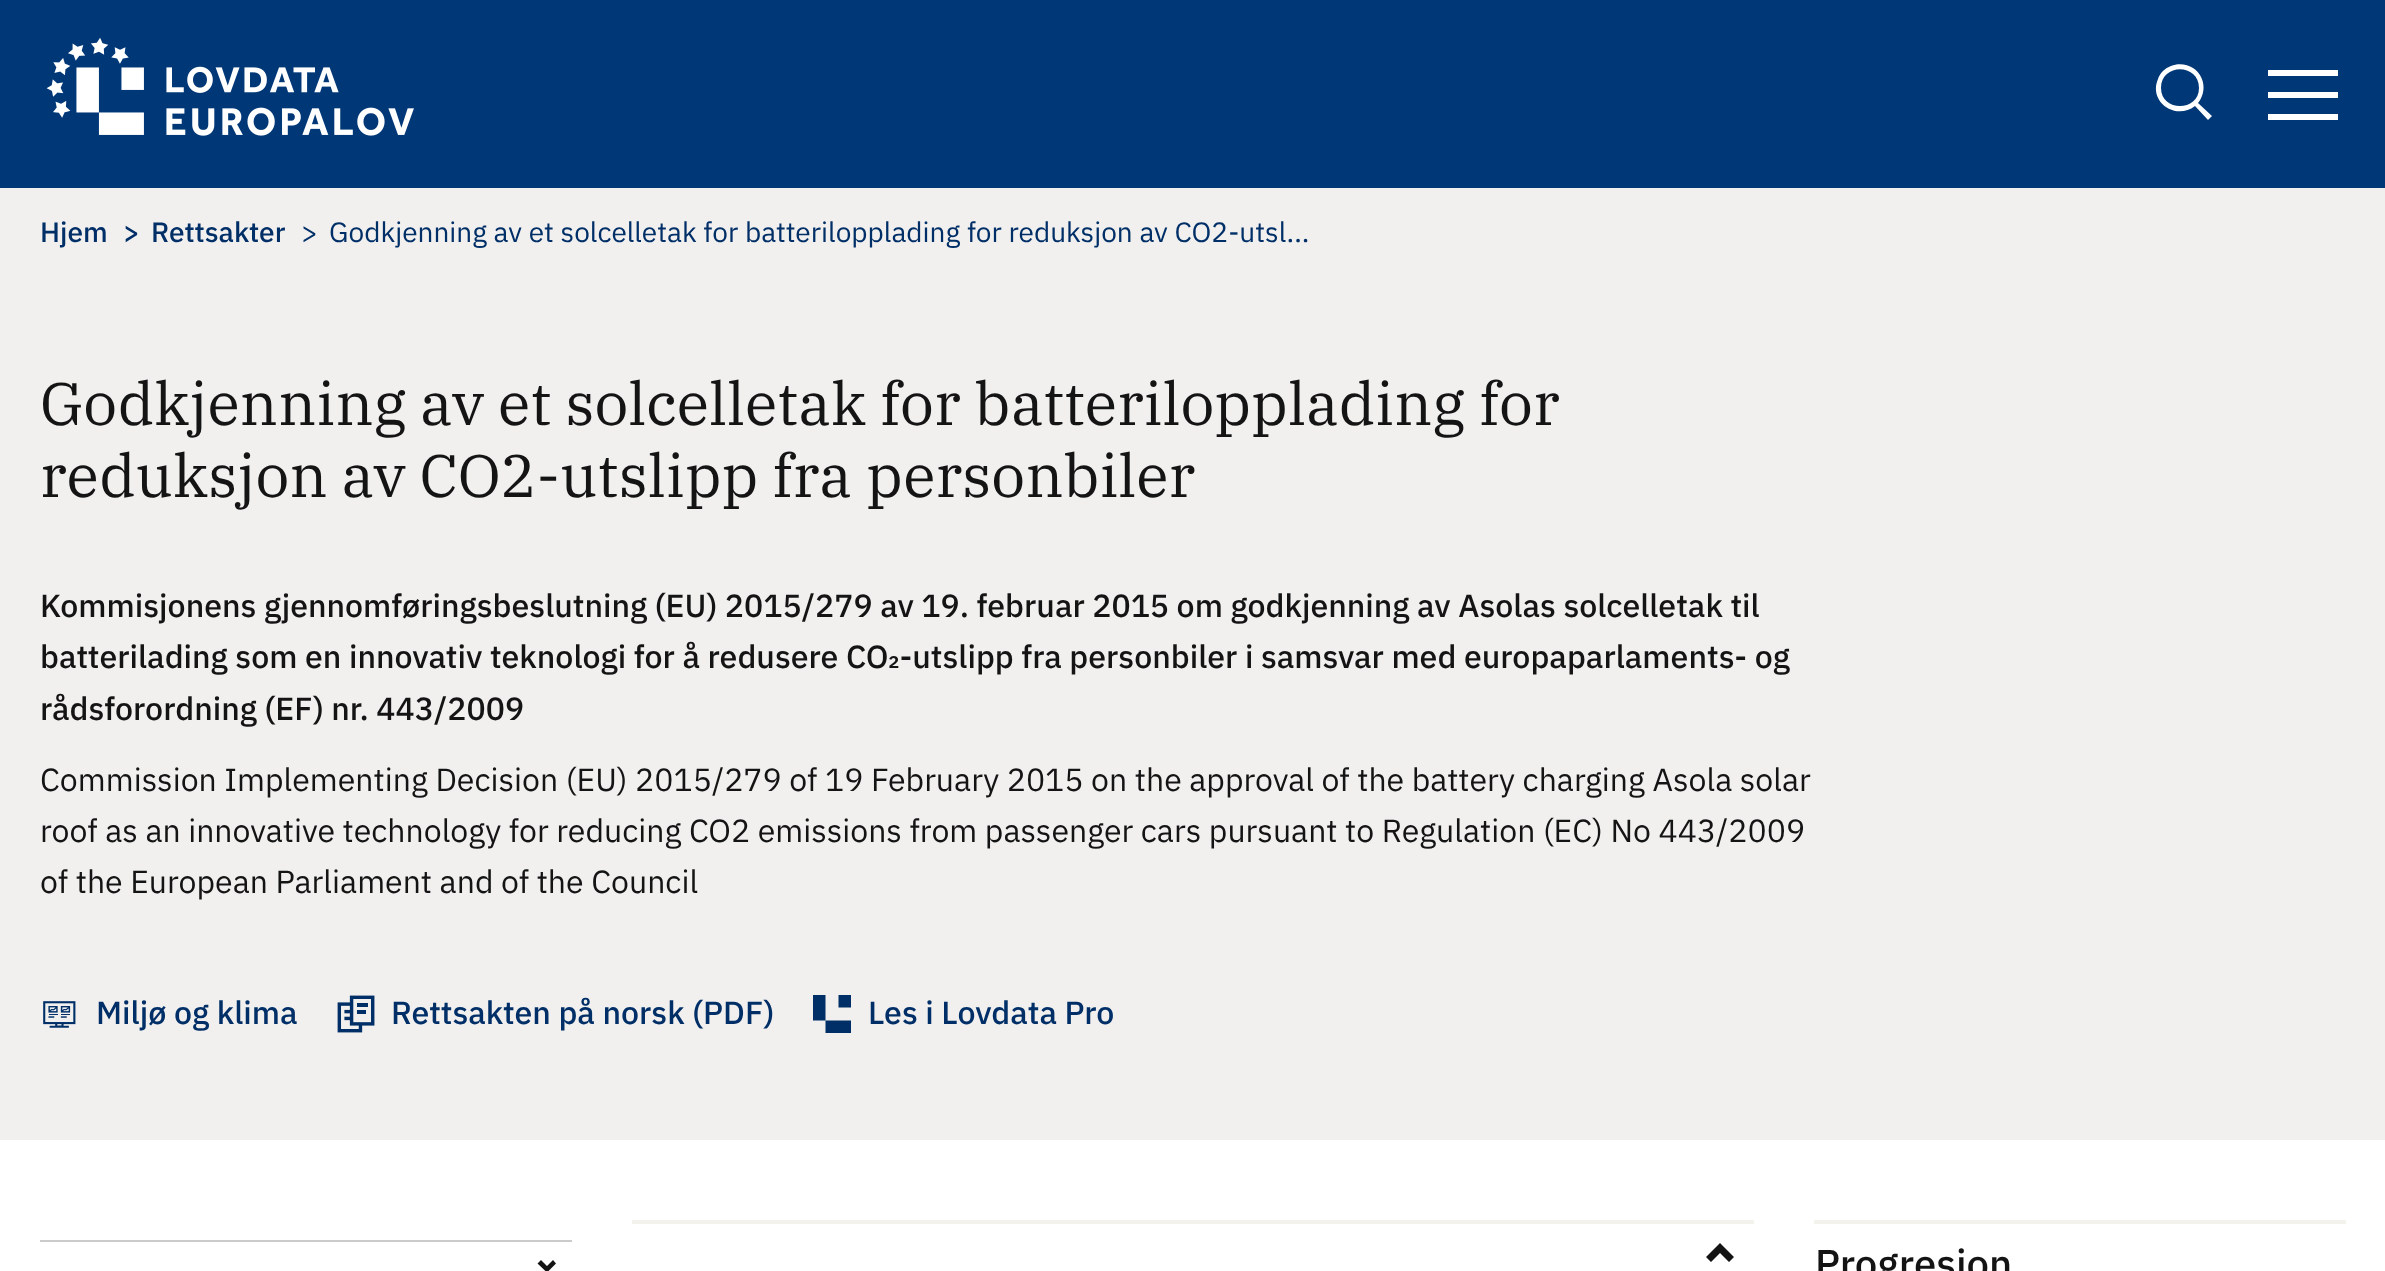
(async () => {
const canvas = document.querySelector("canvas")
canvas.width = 2385
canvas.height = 1271
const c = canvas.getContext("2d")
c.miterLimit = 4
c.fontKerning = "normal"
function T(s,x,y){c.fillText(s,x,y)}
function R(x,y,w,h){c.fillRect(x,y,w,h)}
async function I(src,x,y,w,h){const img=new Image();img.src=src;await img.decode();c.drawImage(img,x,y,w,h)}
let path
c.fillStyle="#fff"
R(0,0,2385,1271)
c.fillStyle="#003776"
R(0,0,2385,188)
await I("1.png",46,37,368,99)
c.fillStyle="#fff"
path = new Path2D("M2195 106c-19 15-47-4-37-27c2-6 7-11 13-13c7-3 16-2 22 2c12 8 14 24 5 35l14 13l-4 4zm4-18c0 24-38 24-38 0c0-25 38-25 38 0z")
c.fill(path,"evenodd")
R(2268,70,70,6)
R(2268,92,70,6)
R(2268,114,70,6)
c.fillStyle="#f1f0ef"
R(0,188,2385,952)
c.font="500 28px IBM Plex Sans"
c.fillStyle="#002f67"
T("Hjem",40,242)
T(">",123,242)
T("Rettsakter",151,242)
c.font="28px IBM Plex Sans"
T(">",301,242)
T("Godkjenning av et solcelletak for batterilopplading for reduksjon av CO2-utsl...",329,242)
c.font="60px IBM Plex Serif"
c.fillStyle="#141414"
T("Godkjenning av et solcelletak for batterilopplading for",40,425)
T("reduksjon av CO2-utslipp fra personbiler",40,497)
c.font="500 32px IBM Plex Sans"
T("Kommisjonens gjennomføringsbeslutning (EU) 2015/279 av 19. februar 2015 om godkjenning av Asolas solcelletak til",40,617)
T("batterilading som en innovativ teknologi for å redusere CO₂-utslipp fra personbiler i samsvar med europaparlaments- og",40,668)
T("rådsforordning (EF) nr. 443/2009",40,720)
c.font="32px IBM Plex Sans"
T("Commission Implementing Decision (EU) 2015/279 of 19 February 2015 on the approval of the battery charging Asola solar",40,791)
T("roof as an innovative technology for reducing CO2 emissions from passenger cars pursuant to Regulation (EC) No 443/2009",40,842)
T("of the European Parliament and of the Council",40,893)
await I("2.png",43,1001,33,27)
c.font="500 32px IBM Plex Sans"
c.fillStyle="#002f67"
T("Miljø og klima",96,1024)
await I("3.png",337,995,38,38)
T("Rettsakten på norsk (PDF)",391,1024)
path = new Path2D("M825.5 995v25.5h-12.5v-25.5zm25.5 25.5v12.5h-25.5v-12.5zm0-13v-12.5h-12.5v12.5z")
c.fill(path,"evenodd")
T("Les i Lovdata Pro",868,1024)
c.fillStyle="#cbcbcb"
R(40,1240,532,2)
c.fillStyle="#141414"
path = new Path2D("M537.5 1263.5l3.5-3.5l6 6l6-6l3 3.5l-9 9z")
c.fill(path)
c.fillStyle="#f3f2ed"
R(632,1220,1122,4)
c.fillStyle="#141414"
path = new Path2D("M1734 1257l-5 5l-9-9l-9 9l-5-5l14-14z")
c.fill(path)
c.fillStyle="#f3f2ed"
R(1814,1220,532,4)
c.font="500 40px IBM Plex Sans"
c.fillStyle="#141414"
T("Progresjon",1815,1278)
})()
